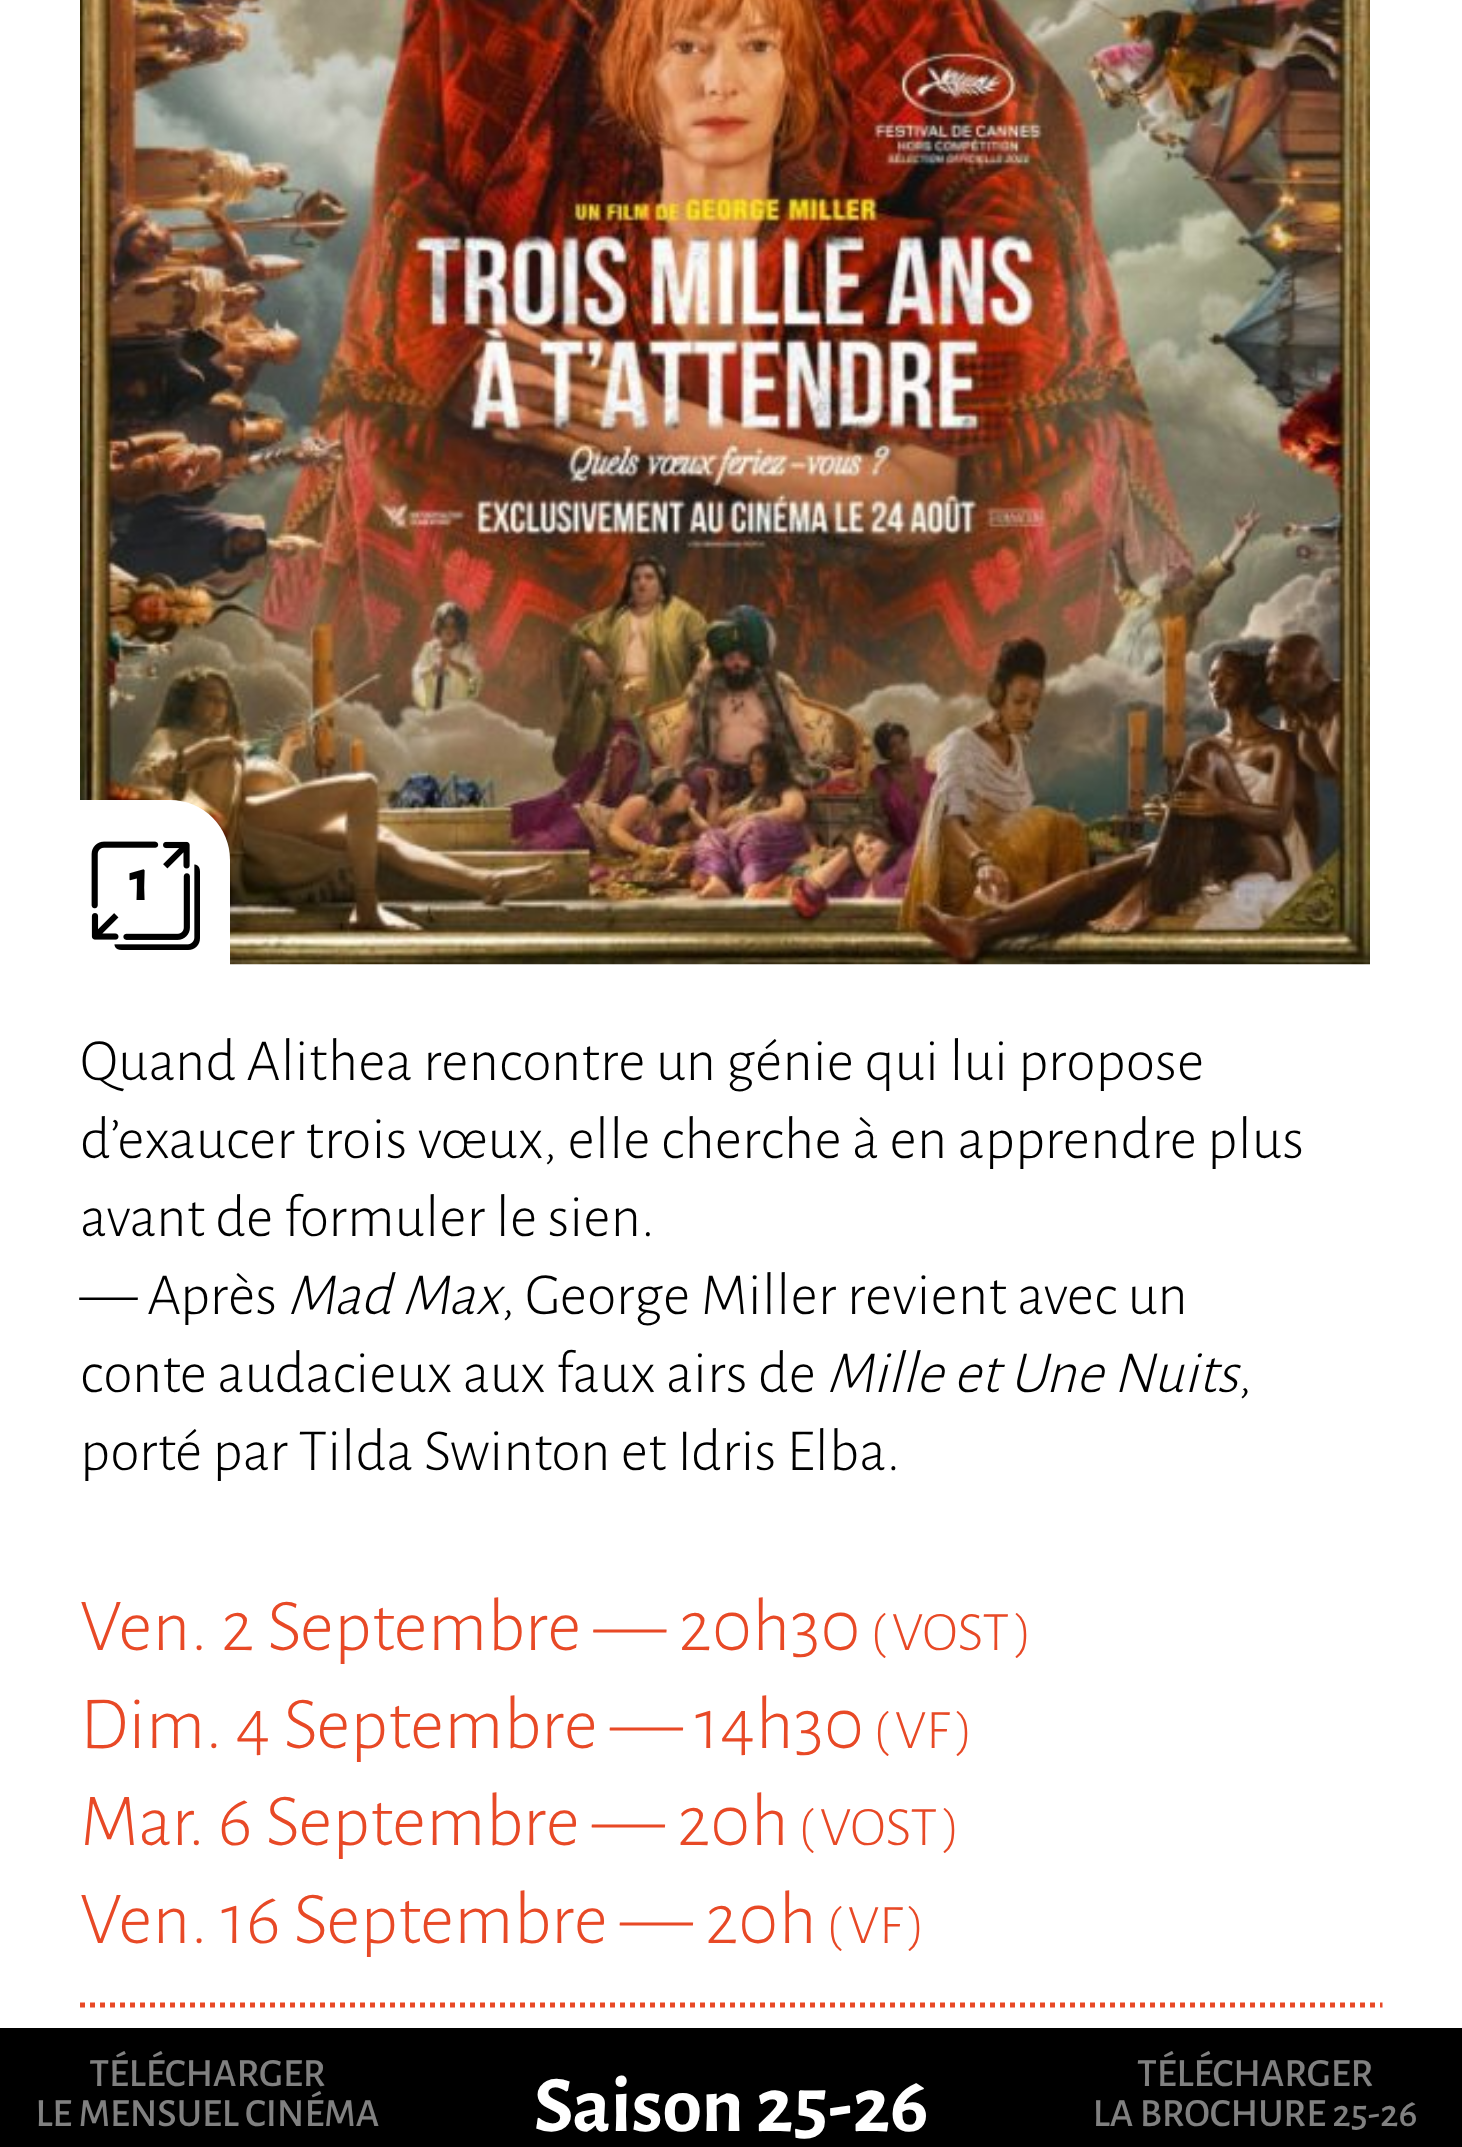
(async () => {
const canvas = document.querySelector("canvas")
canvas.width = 1462
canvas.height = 2147
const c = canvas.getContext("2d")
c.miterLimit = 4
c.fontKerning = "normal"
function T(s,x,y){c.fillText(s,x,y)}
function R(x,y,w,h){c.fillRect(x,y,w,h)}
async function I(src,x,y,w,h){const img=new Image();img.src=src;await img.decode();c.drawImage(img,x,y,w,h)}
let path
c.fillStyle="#fff"
R(0,0,1462,2147)
await I("1.png",80,0,1290,965)
c.beginPath()
c.roundRect(80,800,150,165,[0,60,0,0])
c.fill()
await I("2.png",91,841,109,109)
c.font="bold 60px Alegreya Sans"
c.fillStyle="#000"
T("1",129,900)
c.font="300 60px Alegreya Sans"
T("Quand Alithea rencontre un génie qui lui propose",80,1080)
T("d’exaucer trois vœux, elle cherche à en apprendre plus",80,1158)
T("avant de formuler le sien.",80,1236)
T("— Après",80,1314)
c.font="italic 300 60px Alegreya Sans"
T("Mad Max",287,1314)
c.font="300 60px Alegreya Sans"
T(", George Miller revient avec un",501,1314)
T("conte audacieux aux faux airs de",80,1392)
c.font="italic 300 60px Alegreya Sans"
T("Mille et Une Nuits",826,1392)
c.font="300 60px Alegreya Sans"
T(",",1238,1392)
T("porté par Tilda Swinton et Idris Elba.",80,1470)
path = new Path2D("M80 2005h1302.5")
c.strokeStyle="#e84926"
c.lineWidth=5
c.setLineDash([5,5])
c.stroke(path)
c.font="300 75px Alegreya Sans"
c.fillStyle="#e84926"
T("Ven. 2 Septembre — 20h30",80,1650)
c.font="300 56px Alegreya Sans"
T("(",870,1650)
T("VOST",892,1650)
T(")",1015,1650)
c.font="300 75px Alegreya Sans"
T("Dim. 4 Septembre — 14h30",80,1748)
c.font="300 56px Alegreya Sans"
T("(",873,1748)
T("VF",895,1748)
T(")",956,1748)
c.font="300 75px Alegreya Sans"
T("Mar. 6 Septembre — 20h",80,1845)
c.font="300 56px Alegreya Sans"
T("(",798,1845)
T("VOST",820,1845)
T(")",943,1845)
c.font="300 75px Alegreya Sans"
T("Ven. 16 Septembre — 20h",80,1943)
c.font="300 56px Alegreya Sans"
T("(",826,1943)
T("VF",848,1943)
T(")",908,1943)
c.fillStyle="#000"
R(0,2028,1462,119)
await I("3.png",38,2051,1378,88)
})()
